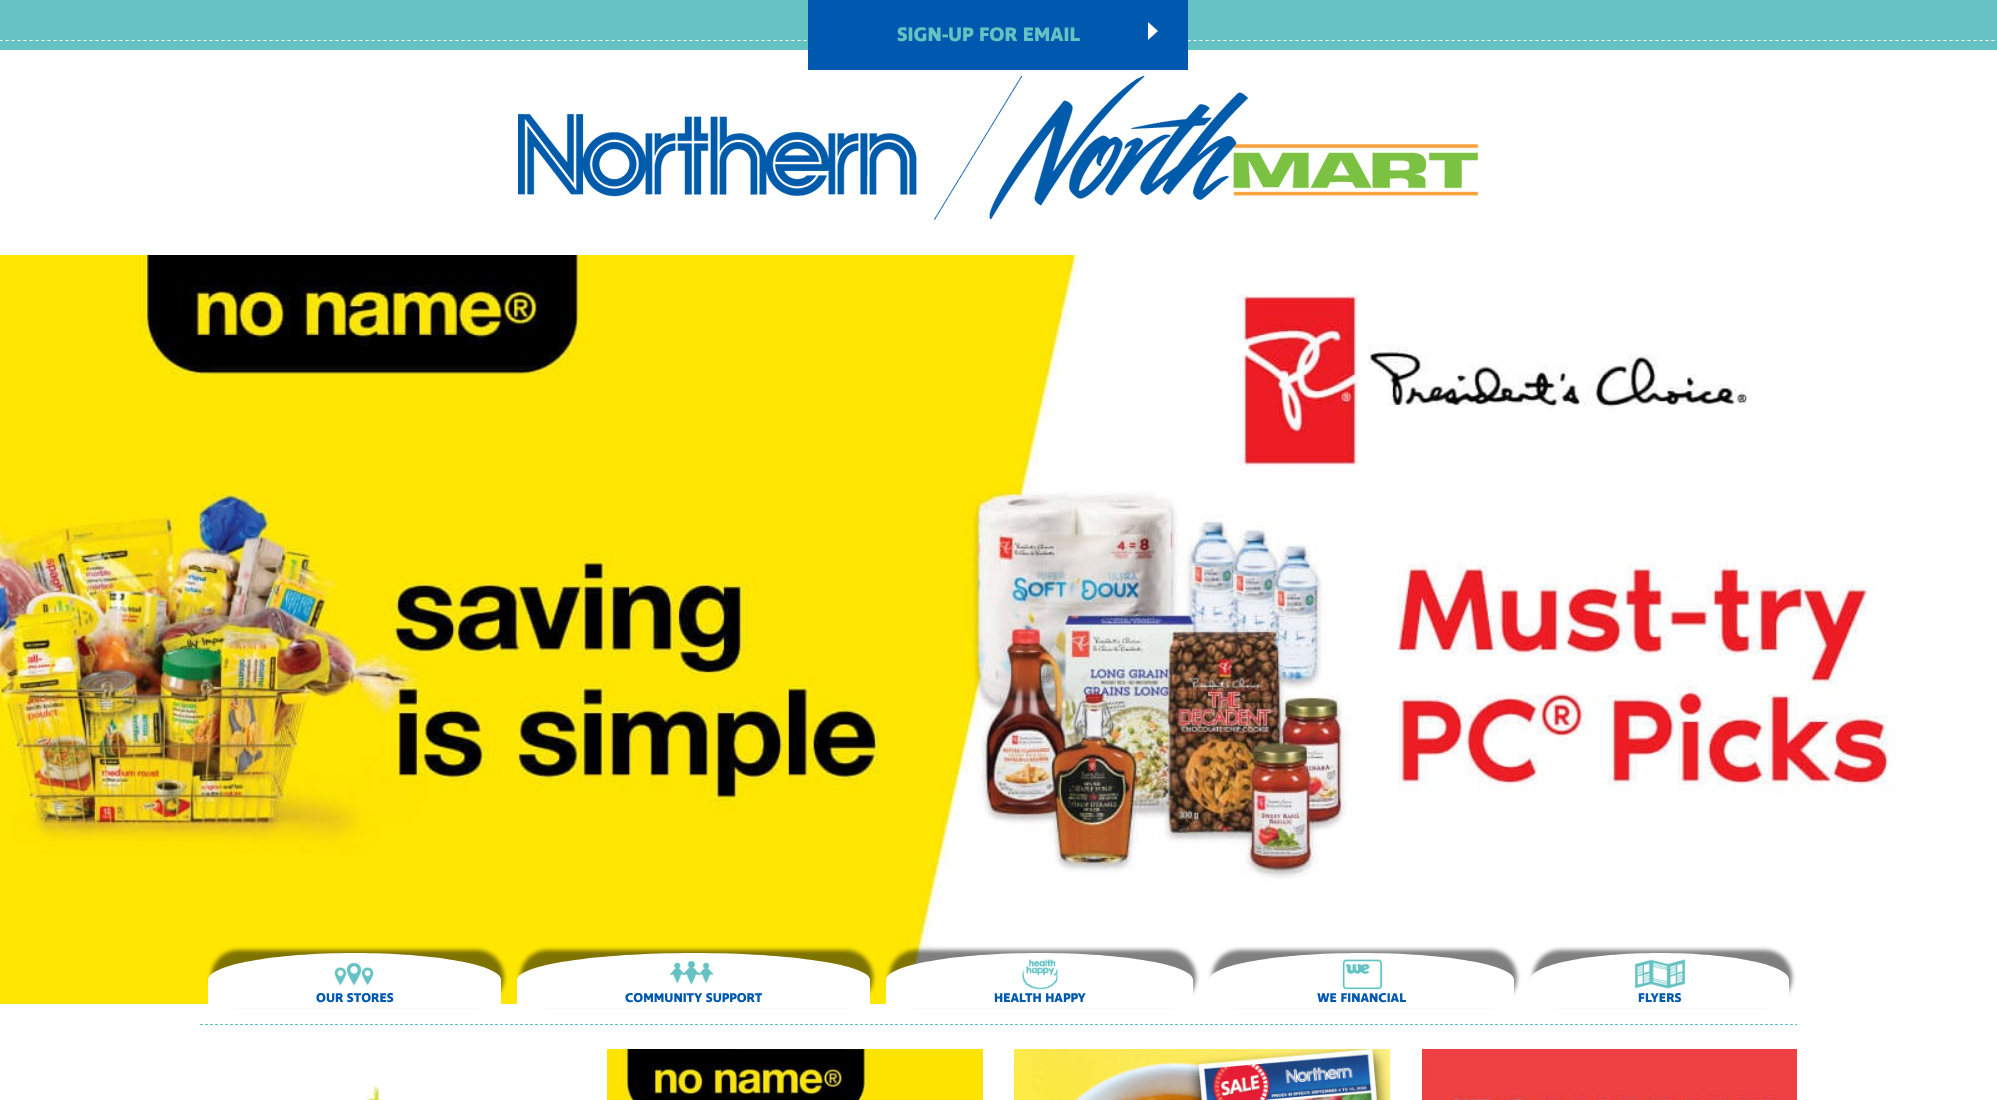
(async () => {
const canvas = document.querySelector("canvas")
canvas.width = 1997
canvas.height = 1100
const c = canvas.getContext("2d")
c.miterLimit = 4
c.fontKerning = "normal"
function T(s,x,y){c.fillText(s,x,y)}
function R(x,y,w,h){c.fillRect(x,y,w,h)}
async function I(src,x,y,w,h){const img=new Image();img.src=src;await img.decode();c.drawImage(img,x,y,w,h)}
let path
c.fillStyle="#fff"
R(0,0,1997,1100)
await I("1.png",0,0,1997,50)
c.fillStyle="#0059ae"
R(808,0,380,70)
c.font="bold 20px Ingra"
c.fillStyle="#66c2c2"
T("SIGN-UP FOR EMAIL",897,41)
c.fillStyle="#fff"
path = new Path2D("M1148 40v-18l10 9z")
c.fill(path)
await I("2.png",518,76,960,144)
await I("3.png",0,255,1997,749)
c.fillStyle="#00000080"
c.filter="blur(2px)"
c.beginPath()
c.roundRect(211,950,293,55,27.5)
c.fill()
c.filter="none"
c.fillStyle="#fff"
path = new Path2D("M354 953c81 0 147 12 147 27v28h-293v-28c0-15 66-27 146-27z")
c.fill(path)
await I("4.png",334,962,40,24)
c.font="bold 13px Ingra"
c.fillStyle="#0059ae"
T("OUR STORES",316,1002)
c.fillStyle="#00000080"
c.filter="blur(2px)"
c.beginPath()
c.roundRect(520,950,353,55,27.5)
c.fill()
c.filter="none"
c.fillStyle="#fff"
path = new Path2D("M694 953c97 0 176 12 176 27v28h-353v-28c0-15 79-27 177-27z")
c.fill(path)
await I("5.png",670,960,44,25)
c.fillStyle="#0059ae"
T("COMMUNITY SUPPORT",625,1002)
c.fillStyle="#00000080"
c.filter="blur(2px)"
c.beginPath()
c.roundRect(889,950,307,55,27.5)
c.fill()
c.filter="none"
c.fillStyle="#fff"
path = new Path2D("M1040 953c84 0 153 12 153 27v28h-307v-28c0-15 69-27 154-27z")
c.fill(path)
await I("6.png",1022,959,36,31)
c.fillStyle="#0059ae"
T("HEALTH HAPPY",994,1002)
c.fillStyle="#00000080"
c.filter="blur(2px)"
c.beginPath()
c.roundRect(1212,950,305,55,27.5)
c.fill()
c.filter="none"
c.fillStyle="#fff"
path = new Path2D("M1362 953c84 0 152 12 152 27v28h-305v-28c0-15 68-27 153-27z")
c.fill(path)
await I("7.png",1342,959,40,31)
c.fillStyle="#0059ae"
T("WE FINANCIAL",1317,1002)
c.fillStyle="#00000080"
c.filter="blur(2px)"
c.beginPath()
c.roundRect(1533,950,259,55,27.5)
c.fill()
c.filter="none"
c.fillStyle="#fff"
path = new Path2D("M1660 953c71 0 129 12 129 27v28h-259v-28c0-15 58-27 130-27z")
c.fill(path)
await I("8.png",1635,959,51,30)
c.fillStyle="#0059ae"
T("FLYERS",1638,1002)
path = new Path2D("M200 1024.5h1597")
c.strokeStyle="#66c2c2"
c.setLineDash([3,2])
c.stroke(path)
await I("9.png",365,1079,22,21)
await I("10.png",607,1049,376,51)
await I("11.png",1014,1049,376,51)
await I("12.png",1422,1049,375,51)
})()
